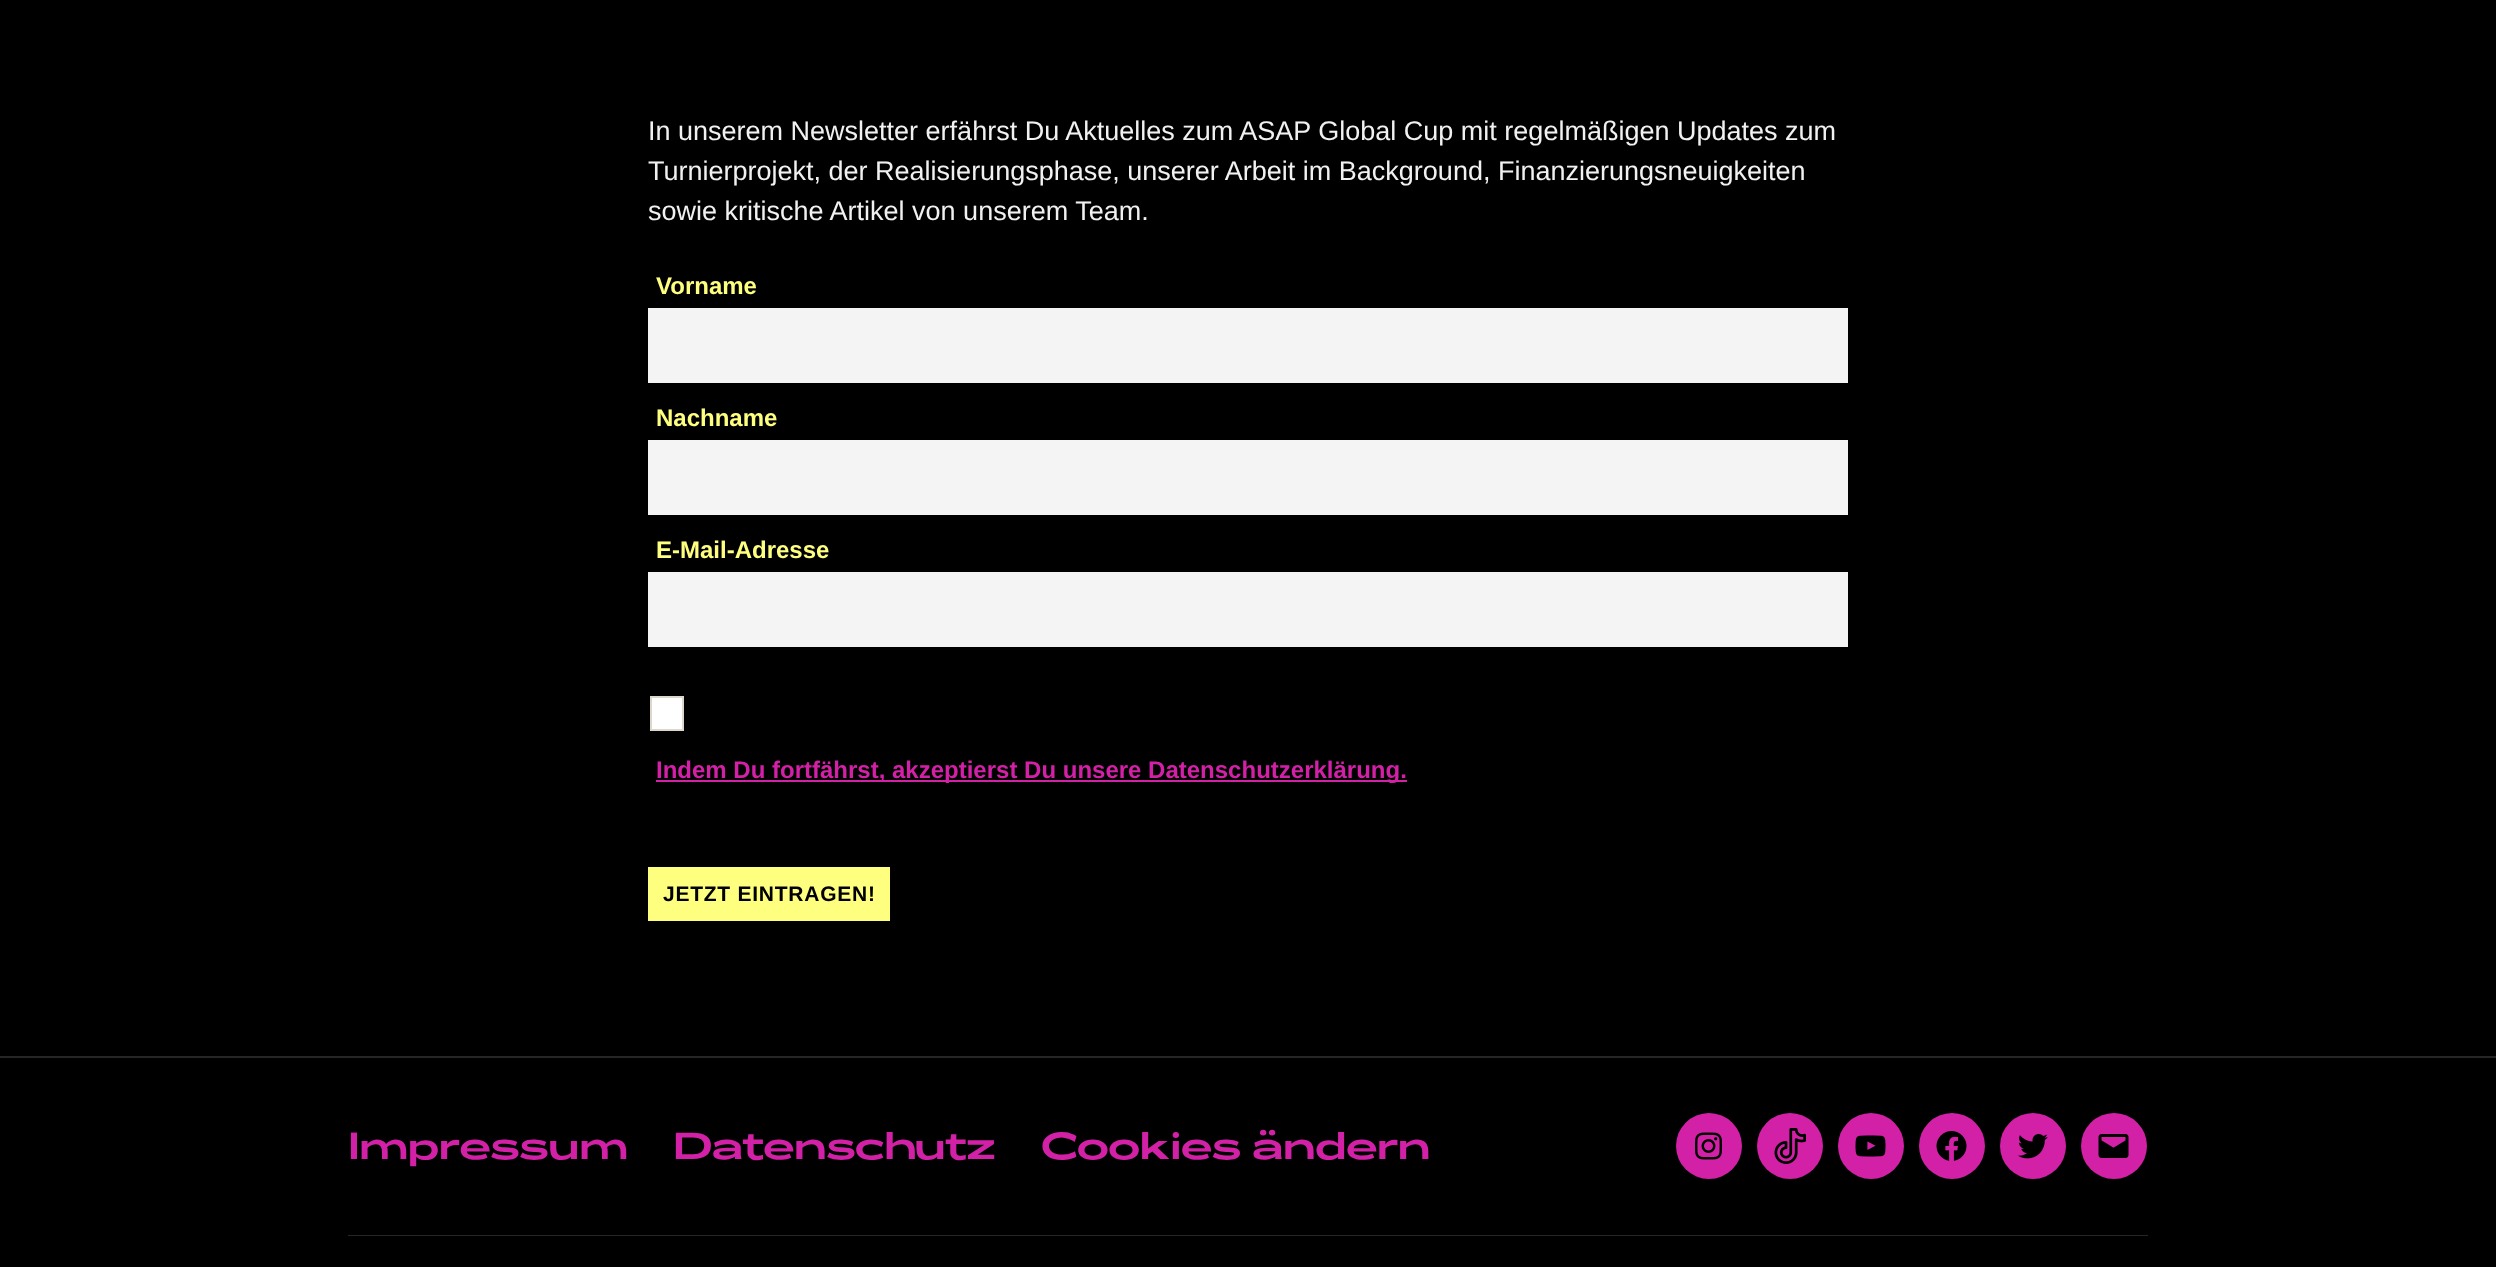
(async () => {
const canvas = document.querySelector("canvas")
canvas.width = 2496
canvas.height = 1267
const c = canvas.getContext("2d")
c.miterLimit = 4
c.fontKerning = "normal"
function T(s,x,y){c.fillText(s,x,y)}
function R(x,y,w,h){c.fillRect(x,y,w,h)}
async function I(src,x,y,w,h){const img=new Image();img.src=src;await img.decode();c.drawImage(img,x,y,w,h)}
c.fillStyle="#000"
R(0,0,2496,1267)
c.font="27px Liberation Sans"
c.fillStyle="#f1f1f1"
T("In unserem Newsletter erfährst Du Aktuelles zum ASAP Global Cup mit regelmäßigen Updates zum",648,140)
T("Turnierprojekt, der Realisierungsphase, unserer Arbeit im Background, Finanzierungsneuigkeiten",648,180)
T("sowie kritische Artikel von unserem Team.",648,220)
c.font="bold 24px Liberation Sans"
c.fillStyle="#ffff7f"
T("Vorname",656,294)
c.fillStyle="#f4f4f4"
R(648,308,1200,75)
c.fillStyle="#ffff7f"
T("Nachname",656,426)
c.fillStyle="#f4f4f4"
R(648,440,1200,75)
c.fillStyle="#ffff7f"
T("E-Mail-Adresse",656,558)
c.fillStyle="#f4f4f4"
R(648,572,1200,75)
c.fillStyle="#fff"
c.beginPath()
c.rect(651,697,32,33)
c.fill()
c.strokeStyle="#dcd7ca"
c.lineWidth=2
c.stroke()
c.fillStyle="#d321a7"
R(656,780,751,2)
T("Indem Du fortfährst, akzeptierst Du unsere Datenschutzerklärung.",656,778)
c.fillStyle="#ffff7f"
R(648,867,242,54)
c.letterSpacing="0.75px"
c.font="bold 21px Liberation Sans"
c.fillStyle="#000"
T("JETZT EINTRAGEN!",663,901)
c.fillStyle="#262626"
R(0,1056,2496,2)
R(348,1235,1800,1)
c.letterSpacing="-1px"
c.font="bold 36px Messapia"
c.fillStyle="#d321a7"
T("Impressum",348,1159)
T("Datenschutz",673,1159)
T("Cookies ändern",1041,1159)
c.beginPath()
c.arc(1709,1146,33,0,7)
c.fill()
await I("1.png",1695,1132,27,28)
c.beginPath()
c.arc(1790,1146,33,0,7)
c.fill()
await I("2.png",1774,1128,32,36)
c.beginPath()
c.arc(1871,1146,33,0,7)
c.fill()
await I("3.png",1855,1135,31,22)
c.beginPath()
c.arc(1952,1146,33,0,7)
c.fill()
await I("4.png",1936,1131,31,30)
c.beginPath()
c.arc(2033,1146,33,0,7)
c.fill()
await I("5.png",2018,1134,30,25)
c.beginPath()
c.arc(2114,1146,33,0,7)
c.fill()
await I("6.png",2098,1134,31,24)
})()
